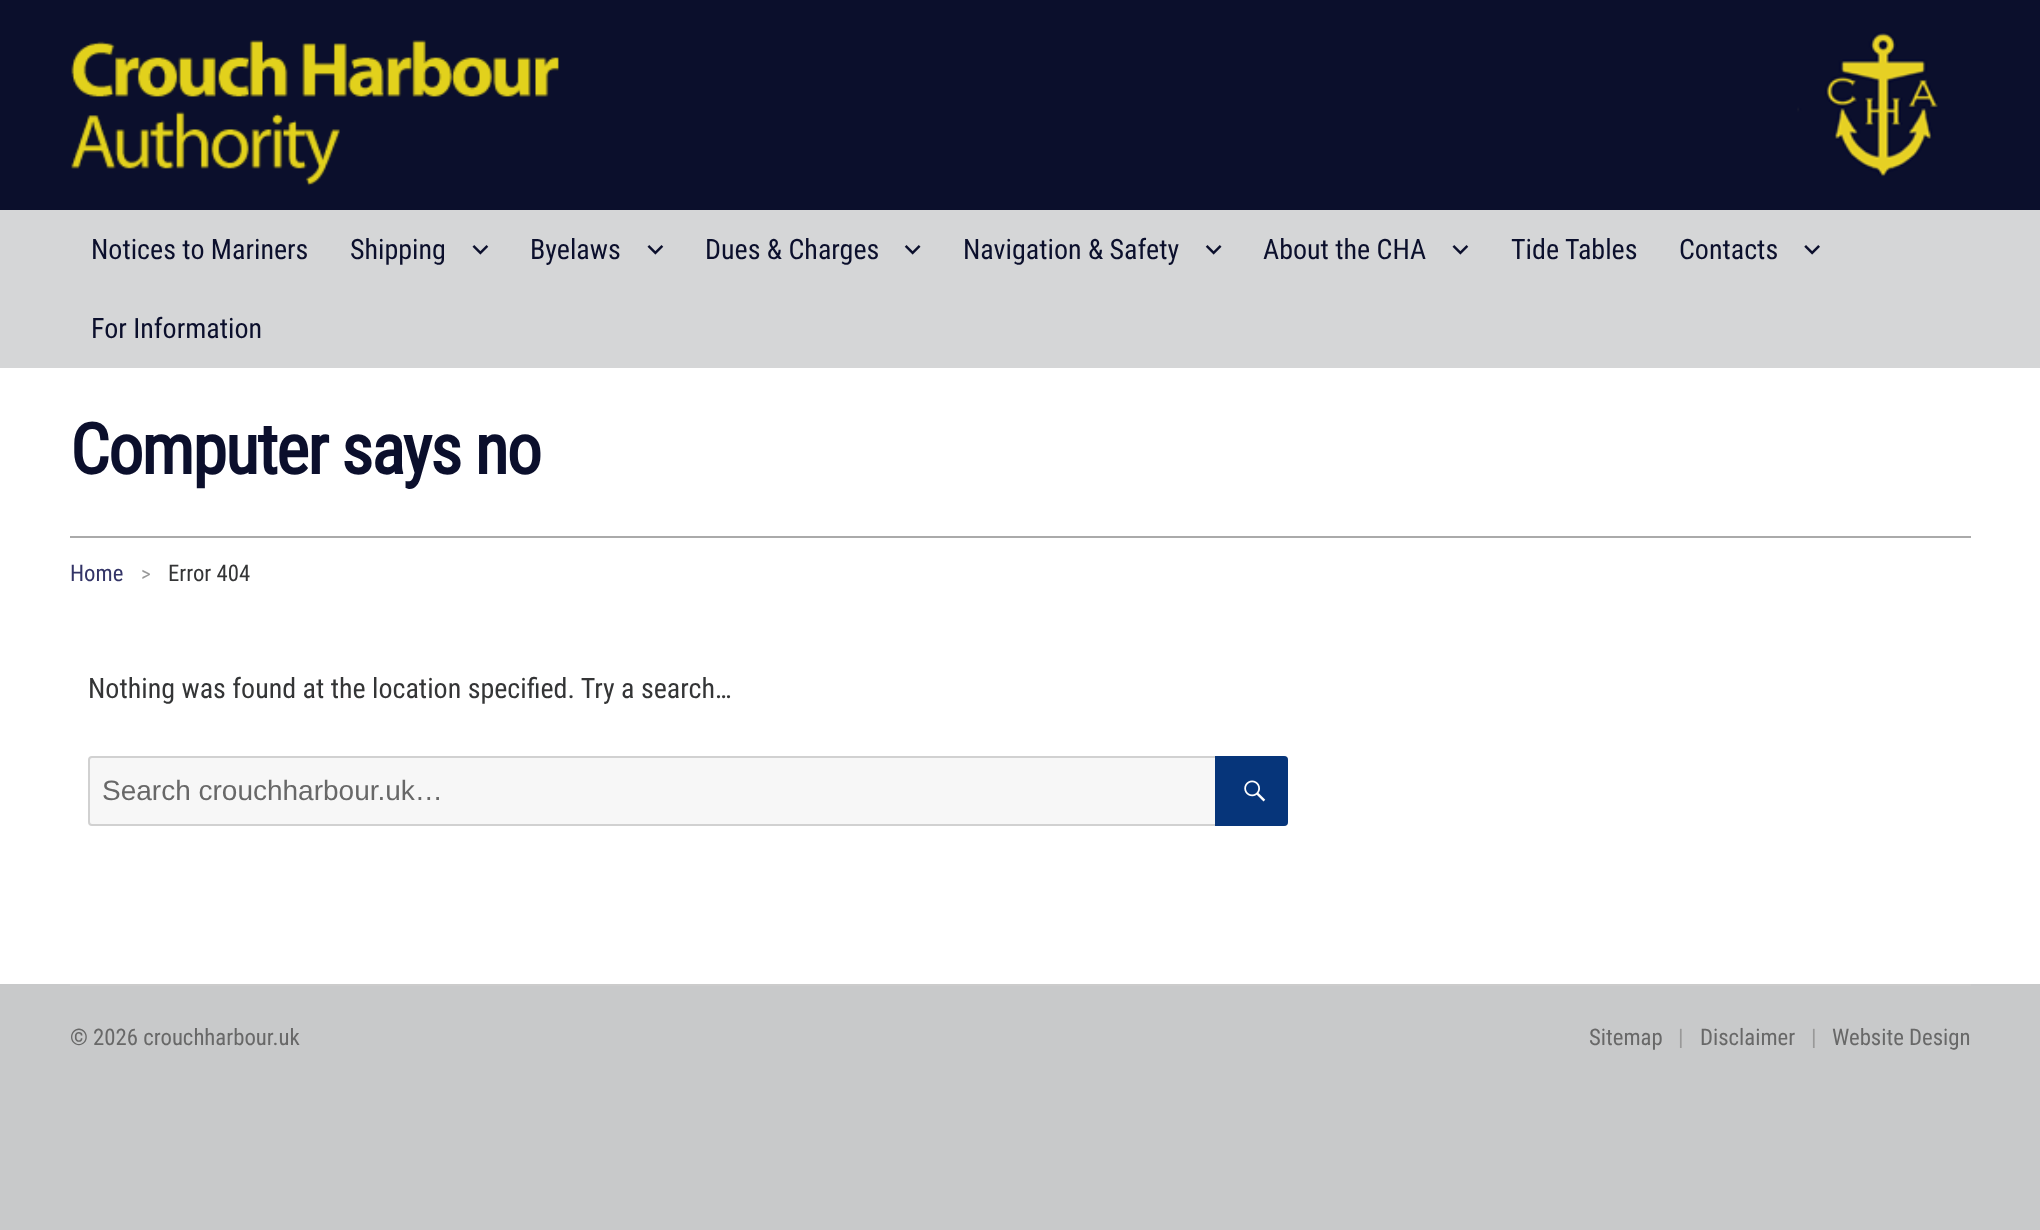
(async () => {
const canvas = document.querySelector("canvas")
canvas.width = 2040
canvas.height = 1230
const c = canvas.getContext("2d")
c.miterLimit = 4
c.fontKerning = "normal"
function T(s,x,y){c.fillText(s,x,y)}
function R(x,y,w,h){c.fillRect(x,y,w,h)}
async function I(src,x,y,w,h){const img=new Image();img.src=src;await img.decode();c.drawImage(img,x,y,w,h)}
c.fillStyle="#fff"
R(0,0,2040,1230)
c.fillStyle="#0b0f2c"
R(0,0,2040,210)
await I("1.png",71,40,488,146)
await I("2.png",1797,32,141,145)
c.fillStyle="#d5d6d7"
R(0,210,2040,158)
c.font="28px Roboto Condensed"
c.fillStyle="#0b0f2c"
T("Notices to Mariners",91,259)
T("Shipping",350,259)
await I("3.png",472,245,17,10)
T("Byelaws",530,259)
await I("3.png",647,245,17,10)
T("Dues & Charges",705,259)
await I("4.png",904,245,17,10)
T("Navigation & Safety",963,259)
await I("4.png",1205,245,17,10)
T("About the CHA",1263,259)
await I("3.png",1452,245,17,10)
T("Tide Tables",1511,259)
T("Contacts",1679,259)
await I("5.png",1804,245,16,10)
T("For Information",91,338)
c.fillStyle="#aaa"
R(70,536,1901,2)
c.letterSpacing="-1.75px"
c.font="bold 70px Roboto Condensed"
c.fillStyle="#0b0f2c"
T("Computer says no",70,474)
c.letterSpacing="0px"
c.font="22.75px Roboto Condensed"
c.fillStyle="#333467"
T("Home",70,581)
c.font="21px Roboto Condensed"
c.fillStyle="#999"
T(">",141,581)
c.font="22.75px Roboto Condensed"
c.fillStyle="#343536"
T("Error 404",168,581)
c.font="28px Roboto Condensed"
T("Nothing was found at the location specified. Try a search…",88,698)
c.fillStyle="#f7f7f7"
c.beginPath()
c.roundRect(89,757,1198,68,3)
c.fill()
c.strokeStyle="#d1d1d1"
c.lineWidth=2
c.stroke()
c.font="28px Liberation Sans"
c.fillStyle="#686868"
T("Search crouchharbour.uk…",102,800)
c.fillStyle="#06357a"
c.beginPath()
c.roundRect(1215,756,73,70,[0,4,4,0])
c.fill()
await I("6.png",1244,780,22,22)
c.fillStyle="#c8c9ca"
R(0,984,2040,246)
c.fillStyle="#ccc"
R(70,984,1901,2)
c.font="22.75px Roboto Condensed"
c.fillStyle="#686868"
T("© 2026 crouchharbour.uk",70,1045)
T("Sitemap",1589,1045)
c.fillStyle="#999"
T("|",1678,1045)
c.fillStyle="#686868"
T("Disclaimer",1700,1045)
c.fillStyle="#999"
T("|",1811,1045)
c.fillStyle="#686868"
T("Website Design",1832,1045)
})()
